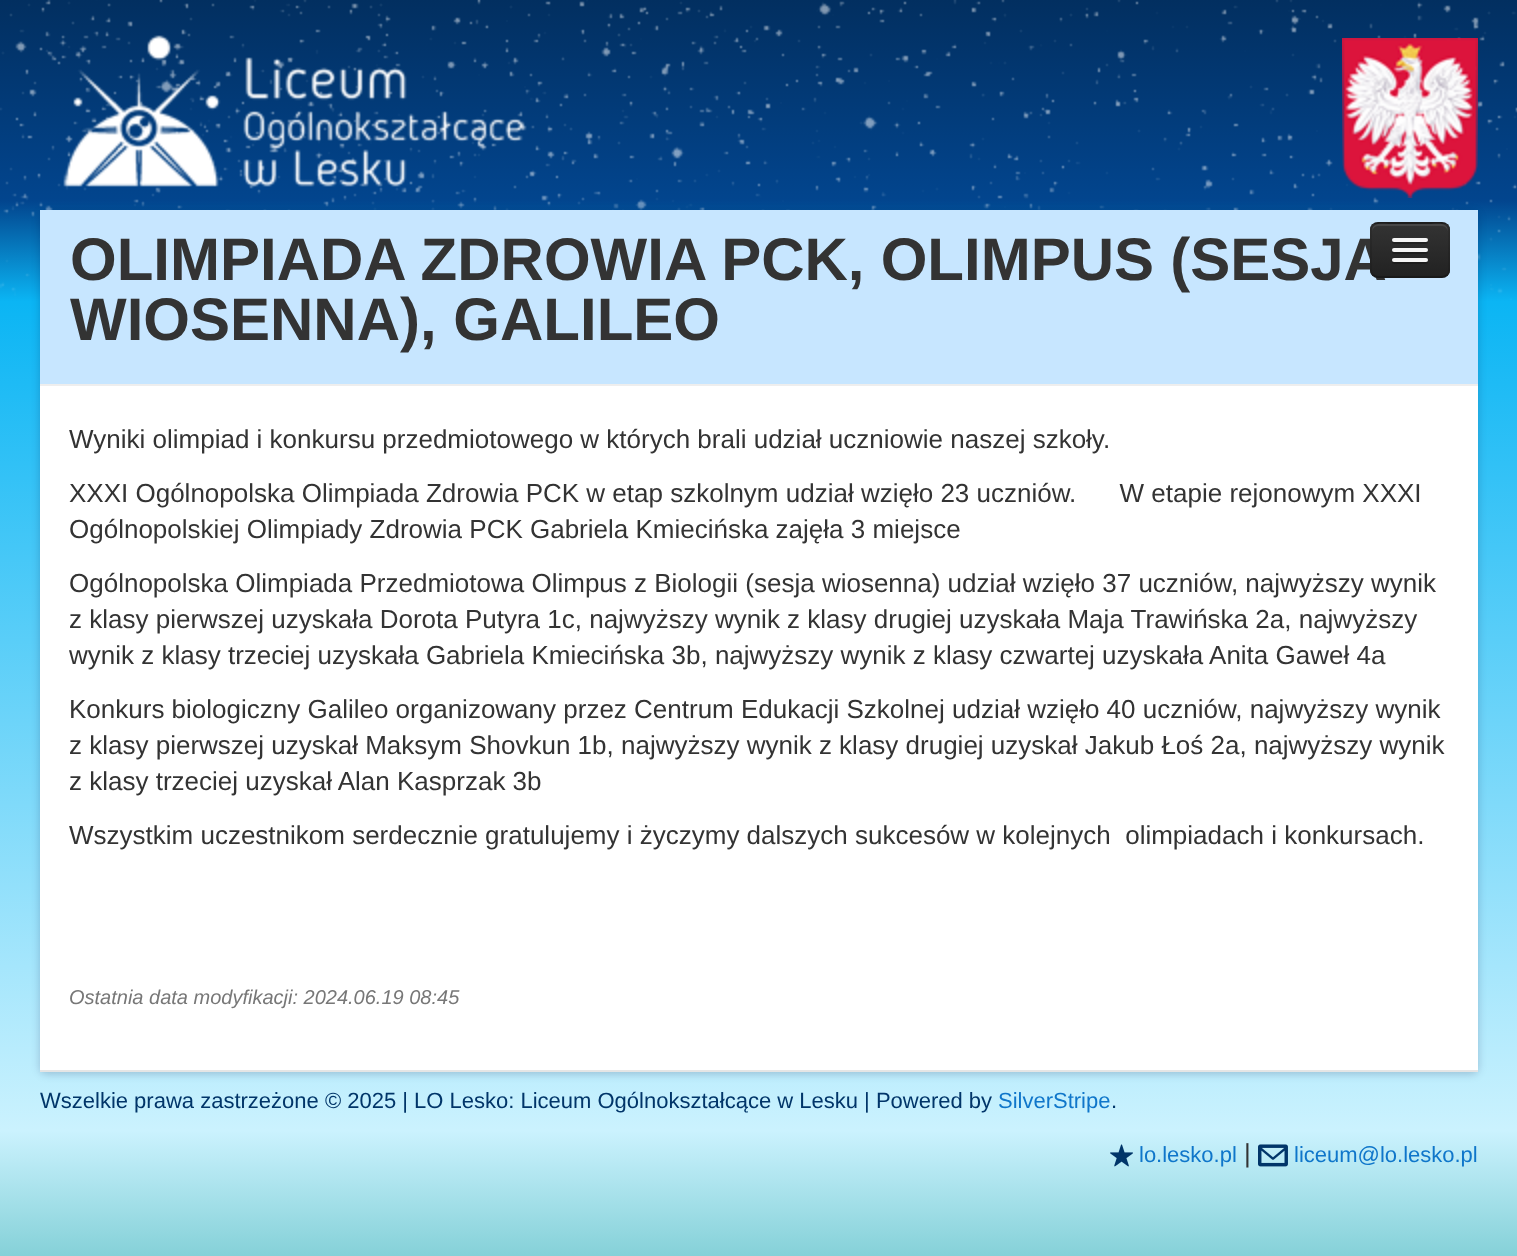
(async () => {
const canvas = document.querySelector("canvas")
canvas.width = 1517
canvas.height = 1256
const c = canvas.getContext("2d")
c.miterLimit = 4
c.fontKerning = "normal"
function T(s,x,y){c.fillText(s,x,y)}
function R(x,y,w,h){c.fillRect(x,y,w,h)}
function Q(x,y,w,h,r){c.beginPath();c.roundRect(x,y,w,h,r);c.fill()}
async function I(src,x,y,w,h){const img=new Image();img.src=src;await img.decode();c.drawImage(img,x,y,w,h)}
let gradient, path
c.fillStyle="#fff"
R(0,0,1517,1256)
gradient = c.createLinearGradient(759,0,759,1256)
gradient.addColorStop(0,"#022f60")
gradient.addColorStop(.16,"#02458e")
gradient.addColorStop(.24,"#0bb5f4")
gradient.addColorStop(.9,"#cbf2fe")
gradient.addColorStop(1,"#85d1d8")
c.fillStyle = gradient
R(0,0,1517,1256)
await I("1.png",0,0,1517,300)
await I("2.png",63,35,462,152)
await I("3.png",1342,38,136,160)
c.fillStyle="#00003233"
c.filter="blur(4px)"
c.beginPath()
c.roundRect(40,212,1438,862,6)
c.fill()
c.filter="none"
c.fillStyle="#c7e6ff"
R(40,210,1438,174)
c.fillStyle="#ffffff12"
path = new Path2D("M1370 270c0 12 9 10 19 10h42c10 0 19 2 19-10c0 4-4 8-8 8h-64c-4 0-8-4-8-8z")
c.fill(path)
c.wordSpacing="-0.5px"
c.font="bold 60px Liberation Sans"
c.fillStyle="#333"
T("OLIMPIADA ZDROWIA PCK, OLIMPUS (SESJA",70,280)
c.fillStyle="#222"
Q(1370,222,80,56,8)
c.save()
c.beginPath()
c.roundRect(1370,222,80,56,8)
c.clip()
gradient = c.createLinearGradient(1410,224,1410,276)
gradient.addColorStop(0,"#333")
gradient.addColorStop(1,"#222")
c.fillStyle = gradient
R(1370,224,80,52)
c.restore()
c.fillStyle="#474747"
path = new Path2D("M1378 226h64c3 0 6 3 6 6c0-10-8-8-17-8h-42c-9 0-17-2-17 8c0-3 3-6 6-6z")
c.fill(path)
path = new Path2D("M1447 275c-1.5 1.5-3 2-5 2h-64c-2 0-3.5-.5-5-2")
c.strokeStyle="#00000040"
c.lineWidth=2
c.stroke(path)
path = new Path2D("M1373 275c-1.5-1.5-2-3-2-5v-40c0-2 .5-3.5 2-5c1.5-1.5 3-2 5-2h64c2 0 3.5 .5 5 2c1.5 1.5 2 3 2 5v40c0 2-.5 3.5-2 5")
c.strokeStyle="#0000001a"
c.stroke(path)
c.fillStyle="#222"
path = new Path2D("M1392.5 241c-2.5 4 6.5 3 7 3h21c.5 0 9.5 1 7-3c0 .5-1 1-1.5 1h-32c-.5 0-1.5-.5-1.5-1z")
c.fill(path)
c.fillStyle="#f5f5f5"
Q(1392,238,36,4,2)
c.fillStyle="#1f1f1f"
path = new Path2D("M1392.5 251c-2.5 4 6.5 3 7 3h21c.5 0 9.5 1 7-3c0 .5-1 1-1.5 1h-32c-.5 0-1.5-.5-1.5-1z")
c.fill(path)
c.fillStyle="#f5f5f5"
Q(1392,248,36,4,2)
c.fillStyle="#1d1d1d"
path = new Path2D("M1392.5 261c-2.5 4 6.5 3 7 3h21c.5 0 9.5 1 7-3c0 .5-1 1-1.5 1h-32c-.5 0-1.5-.5-1.5-1z")
c.fill(path)
c.fillStyle="#f5f5f5"
Q(1392,258,36,4,2)
c.fillStyle="#fff"
R(40,386,1438,684)
c.fillStyle="#e5e5e5"
R(40,1070,1438,2)
c.fillStyle="#eee"
R(40,384,1438,2)
c.wordSpacing="0px"
c.fillStyle="#333"
T("WIOSENNA), GALILEO",70,340)
c.font="26px Liberation Sans"
T("Wyniki olimpiad i konkursu przedmiotowego w których brali udział uczniowie naszej szkoły.",69,448)
T("XXXI Ogólnopolska Olimpiada Zdrowia PCK w etap szkolnym udział wzięło 23 uczniów.      W etapie rejonowym XXXI",69,502)
T("Ogólnopolskiej Olimpiady Zdrowia PCK Gabriela Kmiecińska zajęła 3 miejsce",69,538)
T("Ogólnopolska Olimpiada Przedmiotowa Olimpus z Biologii (sesja wiosenna) udział wzięło 37 uczniów, najwyższy wynik",69,592)
T("z klasy pierwszej uzyskała Dorota Putyra 1c, najwyższy wynik z klasy drugiej uzyskała Maja Trawińska 2a, najwyższy",69,628)
T("wynik z klasy trzeciej uzyskała Gabriela Kmiecińska 3b, najwyższy wynik z klasy czwartej uzyskała Anita Gaweł 4a",69,664)
T("Konkurs biologiczny Galileo organizowany przez Centrum Edukacji Szkolnej udział wzięło 40 uczniów, najwyższy wynik",69,718)
T("z klasy pierwszej uzyskał Maksym Shovkun 1b, najwyższy wynik z klasy drugiej uzyskał Jakub Łoś 2a, najwyższy wynik",69,754)
T("z klasy trzeciej uzyskał Alan Kasprzak 3b",69,790)
T("Wszystkim uczestnikom serdecznie gratulujemy i życzymy dalszych sukcesów w kolejnych  olimpiadach i konkursach.",69,844)
c.font="italic 20px Liberation Sans"
c.fillStyle="#777"
T("Ostatnia data modyfikacji: 2024.06.19 08:45",69,1004)
c.font="22px Liberation Sans"
c.fillStyle="#013569"
T("Wszelkie prawa zastrzeżone © 2025 | LO Lesko: Liceum Ogólnokształcące w Lesku | Powered by",40,1108)
c.fillStyle="#0f76ca"
T("SilverStripe",998,1108)
c.fillStyle="#013569"
T(".",1111,1108)
await I("4.png",1110,1144,23,23)
c.fillStyle="#0f76ca"
T("lo.lesko.pl",1139,1162)
c.font="26px Liberation Sans"
c.fillStyle="#333"
T("|",1244,1162)
await I("5.png",1258,1144,30,23)
c.font="22px Liberation Sans"
c.fillStyle="#0f76ca"
T("liceum@lo.lesko.pl",1294,1162)
})()
